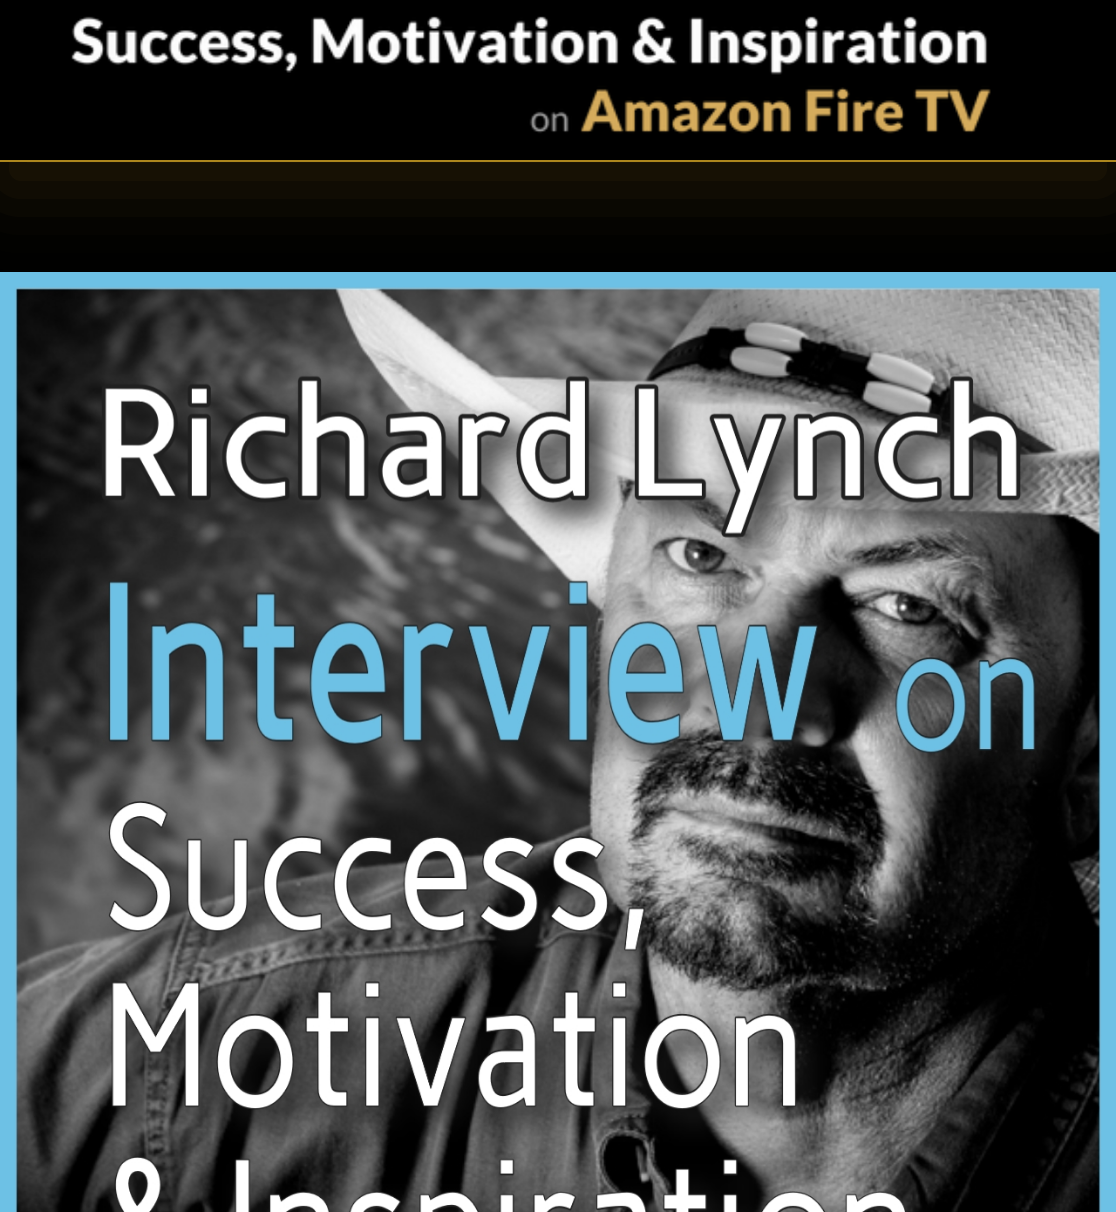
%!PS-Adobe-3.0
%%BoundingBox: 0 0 1116 1212
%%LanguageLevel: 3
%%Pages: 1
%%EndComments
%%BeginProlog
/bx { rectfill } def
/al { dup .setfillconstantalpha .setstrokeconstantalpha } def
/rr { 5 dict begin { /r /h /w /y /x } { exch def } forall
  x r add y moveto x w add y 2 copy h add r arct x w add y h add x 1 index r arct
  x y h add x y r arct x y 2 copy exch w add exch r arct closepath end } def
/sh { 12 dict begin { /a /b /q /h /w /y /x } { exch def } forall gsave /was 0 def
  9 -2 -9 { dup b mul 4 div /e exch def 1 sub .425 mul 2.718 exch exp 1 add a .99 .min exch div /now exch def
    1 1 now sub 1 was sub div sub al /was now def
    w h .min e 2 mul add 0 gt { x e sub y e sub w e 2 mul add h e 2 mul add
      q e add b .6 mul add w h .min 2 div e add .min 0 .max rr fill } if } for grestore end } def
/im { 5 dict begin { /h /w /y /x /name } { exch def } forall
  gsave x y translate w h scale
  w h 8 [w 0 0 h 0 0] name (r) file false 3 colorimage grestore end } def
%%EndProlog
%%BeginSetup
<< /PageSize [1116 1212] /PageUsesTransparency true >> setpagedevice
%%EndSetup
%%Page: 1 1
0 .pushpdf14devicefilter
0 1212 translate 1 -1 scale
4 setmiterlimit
1 setgray
0 0 1116 1212 bx
0 setgray
0 162 1116 110 bx
(image1.raw) 0 272 1116 940 im
1 0.78 0.173 setrgbcolor
0 28 1116 162 0 36 0.12 sh
0 setgray
0 0 1116 160 bx
0.678 0.529 0.118 setrgbcolor
0 160 1116 2 bx
(image0.raw) 71 16 920 118 im
.poppdf14devicefilter showpage
%%EOF
